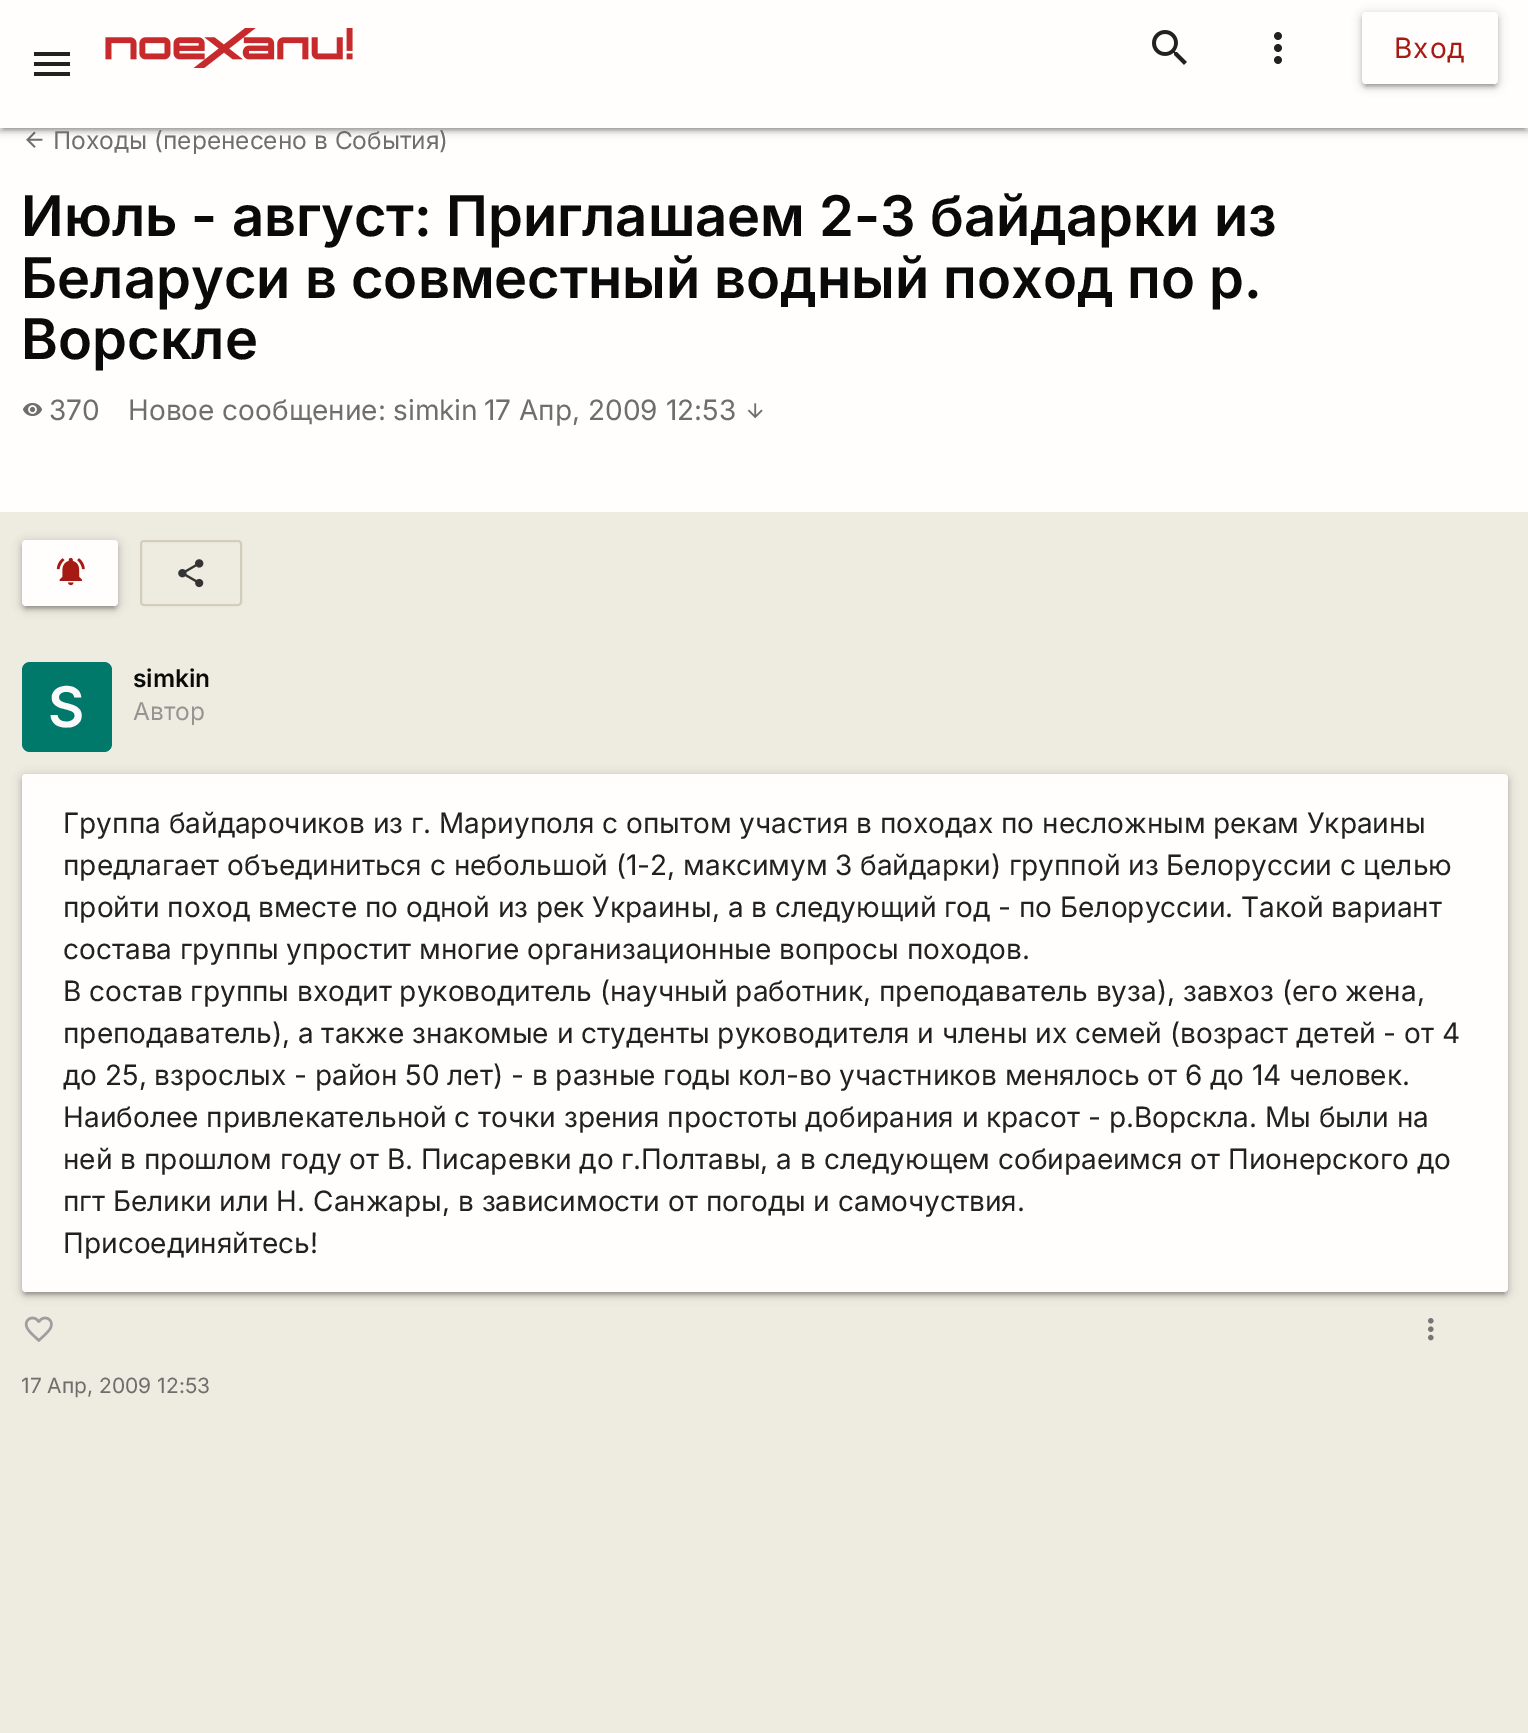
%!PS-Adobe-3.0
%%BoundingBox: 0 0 1528 1733
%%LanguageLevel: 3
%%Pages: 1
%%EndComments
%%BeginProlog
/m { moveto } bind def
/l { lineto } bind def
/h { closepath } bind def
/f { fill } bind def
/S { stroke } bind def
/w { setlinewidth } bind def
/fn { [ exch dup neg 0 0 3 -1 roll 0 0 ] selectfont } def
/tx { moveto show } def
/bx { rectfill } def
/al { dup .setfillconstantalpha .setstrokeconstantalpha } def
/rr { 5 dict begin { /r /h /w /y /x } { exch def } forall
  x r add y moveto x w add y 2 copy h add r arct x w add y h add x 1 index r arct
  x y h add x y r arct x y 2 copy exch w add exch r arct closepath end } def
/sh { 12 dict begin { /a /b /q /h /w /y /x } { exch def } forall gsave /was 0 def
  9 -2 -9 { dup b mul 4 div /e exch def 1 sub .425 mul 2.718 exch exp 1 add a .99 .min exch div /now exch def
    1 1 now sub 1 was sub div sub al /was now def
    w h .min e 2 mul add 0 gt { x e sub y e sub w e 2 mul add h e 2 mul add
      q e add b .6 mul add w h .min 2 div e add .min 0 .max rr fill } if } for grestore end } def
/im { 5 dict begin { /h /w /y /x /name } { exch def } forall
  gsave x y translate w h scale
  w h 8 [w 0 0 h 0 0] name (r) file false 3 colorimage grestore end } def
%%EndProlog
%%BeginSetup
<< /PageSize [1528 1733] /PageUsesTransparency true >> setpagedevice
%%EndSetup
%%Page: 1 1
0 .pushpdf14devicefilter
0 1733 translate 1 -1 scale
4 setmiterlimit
0.933 0.922 0.882 setrgbcolor
0 0 1528 1733 bx
1 0.996 0.988 setrgbcolor
0 128 1528 384 bx
(image3.raw) 26 131 17 17 im
0 setgray
0 2 1528 128 0 5 0.2 sh
4 10 1520 120 0 1 0.12 sh
0 4 1528 128 0 2 0.14 sh
1 0.996 0.988 setrgbcolor
0 0 1528 128 bx
0.129 setgray
34 52 m 70 52 l 70 56 l 34 56 l h 34 66 m 34 62 l 70 62 l 70 66 l h 34 76 m 34 72 l 70 72 l 70 76 l h f
(image0.raw) 105 28 248 40 im
(image1.raw) 1152 30 35 35 im
(image2.raw) 1274 32 8 32 im
0 setgray
1362 14 136 72 4 5 0.2 sh
1366 22 128 64 0 1 0.12 sh
1362 16 136 72 4 2 0.14 sh
1 0.996 0.988 setrgbcolor
1362 12 136 72 4 rr f
/Inter-Regular 28 fn
0.651 0.102 0.078 setrgbcolor
1394 58 m 1 0 (Вход) ashow
/Inter-Regular 24.5 fn
0.439 0.431 0.42 setrgbcolor
(Походы \(перенесено в События\)) 53 149 tx
/Inter-SemiBold 56 fn
0.039 setgray
(Июль - август: Приглашаем 2-3 байдарки из) 21 236 tx
(Беларуси в совместный водный поход по р.) 21 298 tx
(Ворскле) 21 359 tx
(image4.raw) 22 402 21 15 im
/Inter-Regular 28 fn
0.439 0.431 0.42 setrgbcolor
(370) 49 420 tx
(Новое сообщение:) 128 420 tx
(simkin) 393 420 tx
(17 Апр, 2009 12:53) 484 420 tx
(image5.raw) 747 403 16 16 im
0 setgray
22 542 96 66 4 5 0.2 sh
26 550 88 58 0 1 0.12 sh
22 544 96 66 4 2 0.14 sh
1 0.996 0.988 setrgbcolor
22 540 96 66 4 rr f
(image6.raw) 56 557 29 29 im
0.824 0.804 0.737 setrgbcolor
2 w
141 541 100 64 3 rr S
(image7.raw) 178 559 26 29 im
/Inter-SemiBold 24.5 fn
0.039 setgray
(simkin) 133 687 tx
0 0.475 0.42 setrgbcolor
22 662 90 90 8 rr f
/Inter-SemiBold 56 fn
0.98 setgray
(S) 48 727 tx
/Inter-Regular 24.5 fn
0.588 0.58 0.573 setrgbcolor
(Автор) 133 720 tx
0 setgray
22 776 1486 518 4 5 0.2 sh
26 784 1478 510 0 1 0.12 sh
22 778 1486 518 4 2 0.14 sh
1 0.996 0.988 setrgbcolor
22 774 1486 518 4 rr f
/Inter-Regular 28 fn
0.129 setgray
(Группа байдарочиков из г. Мариуполя с опытом участия в походах по несложным рекам Украины) 63 833 tx
(предлагает объединиться с небольшой \(1-2, максимум 3 байдарки\) группой из Белоруссии с целью) 63 875 tx
(пройти поход вместе по одной из рек Украины, а в следующий год - по Белоруссии. Такой вариант) 63 917 tx
(состава группы упростит многие организационные вопросы походов.) 63 959 tx
(В состав группы входит руководитель \(научный работник, преподаватель вуза\), завхоз \(его жена,) 63 1001 tx
(преподаватель\), а также знакомые и студенты руководителя и члены их семей \(возраст детей - от 4) 63 1043 tx
(до 25, взрослых - район 50 лет\) - в разные годы кол-во участников менялось от 6 до 14 человек.) 63 1085 tx
(Наиболее привлекательной с точки зрения простоты добирания и красот - р.Ворскла. Мы были на) 63 1127 tx
(ней в прошлом году от В. Писаревки до г.Полтавы, а в следующем собираеимся от Пионерского до) 63 1169 tx
(пгт Белики или Н. Санжары, в зависимости от погоды и самочуствия.) 63 1211 tx
(Присоединяйтесь!) 63 1253 tx
(image8.raw) 1428 1318 6 23 im
(image9.raw) 24 1316 29 27 im
/Inter-Regular 21 fn
0.439 0.431 0.42 setrgbcolor
(17 Апр, 2009 12:53) 21 1393 tx
.poppdf14devicefilter showpage
%%EOF
